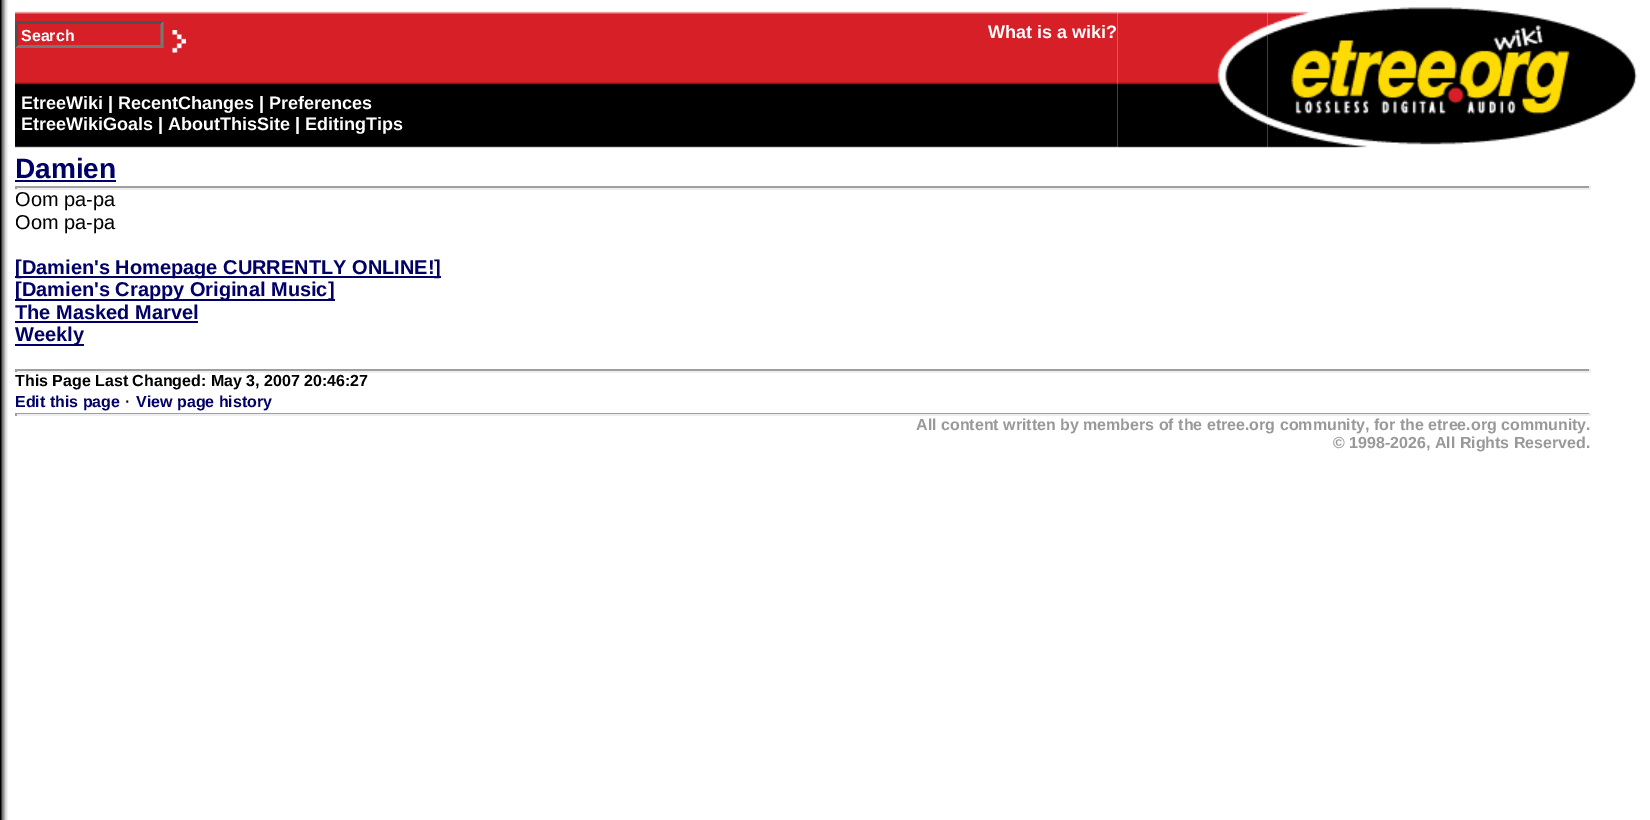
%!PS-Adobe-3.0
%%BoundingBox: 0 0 1650 820
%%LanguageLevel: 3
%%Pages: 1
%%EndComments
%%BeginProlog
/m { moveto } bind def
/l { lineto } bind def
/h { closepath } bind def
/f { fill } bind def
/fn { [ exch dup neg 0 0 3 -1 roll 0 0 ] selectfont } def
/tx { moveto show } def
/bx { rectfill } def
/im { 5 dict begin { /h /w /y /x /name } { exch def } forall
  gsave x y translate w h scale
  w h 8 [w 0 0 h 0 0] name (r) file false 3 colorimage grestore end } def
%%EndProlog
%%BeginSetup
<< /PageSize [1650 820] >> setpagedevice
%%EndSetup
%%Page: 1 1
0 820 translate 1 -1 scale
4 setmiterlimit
1 setgray
0 0 1650 820 bx
(image0.raw) 0 0 8 820 im
(image1.raw) 15 11 1103 137 im
0.31 setgray
15 21 m 164 21 l 160 24 l 18 24 l h f
0.463 setgray
163.5 21 m 163.5 48 l 160.5 45 l 160.5 24 l h f
164 48 m 15 48 l 18 45 l 160 45 l h f
0.31 setgray
15 48 m 15 21 l 18 24 l 18 45 l h f
/LiberationSans-Bold 16 fn
1 setgray
(Search) 21 41 tx
(image2.raw) 172 30 14 23 im
/LiberationSans-Bold 18 fn
(What is a wiki?) 988 38 tx
(EtreeWiki | RecentChanges | Preferences) 21 109 tx
(EtreeWikiGoals | AboutThisSite | EditingTips) 21 130 tx
(image3.raw) 1117 11 151 137 im
(image4.raw) 1267 7 370 141 im
/LiberationSans-Bold 28 fn
0 0 0.4 setrgbcolor
(Damien) 15 178 tx
15 180 101 2 bx
0.624 setgray
15 186 1575 2 bx
0.933 setgray
1589 186 2 3 bx
15 188 1575 2 bx
0.624 setgray
15 186 2 3 bx
/LiberationSans-Regular 20 fn
0 setgray
(Oom pa-pa) 15 206 tx
(Oom pa-pa) 15 229 tx
0 0 0.4 setrgbcolor
15 276 426 2 bx
/LiberationSans-Bold 20 fn
([Damien's Homepage CURRENTLY ONLINE!]) 15 274 tx
15 299 320 2 bx
([Damien's Crappy Original Music]) 15 296 tx
(The Masked Marvel) 15 319 tx
15 321 183 2 bx
15 344 69 2 bx
(Weekly) 15 341 tx
0.624 setgray
15 369 1575 2 bx
0.933 setgray
1589 369 2 3 bx
15 371 1575 2 bx
0.624 setgray
15 369 2 3 bx
/LiberationSans-Bold 16 fn
0 setgray
(This Page Last Changed: May 3, 2007 20:46:27) 15 386 tx
0 0 0.4 setrgbcolor
(Edit this page) 15 407 tx
/LiberationSans-Regular 20 fn
0 setgray
(·) 124 407 tx
/LiberationSans-Bold 16 fn
0 0 0.4 setrgbcolor
(View page history) 136 407 tx
0.624 setgray
15 413 1575 1 bx
0.933 setgray
1589 413 2 3 bx
15 414 1575 2 bx
0.624 setgray
15 413 2 3 bx
0.6 setgray
(All content written by members of the etree.org community, for the etree.org community.) 916 430 tx
(© 1998-2026, All Rights Reserved.) 1333 448 tx
showpage
%%EOF
